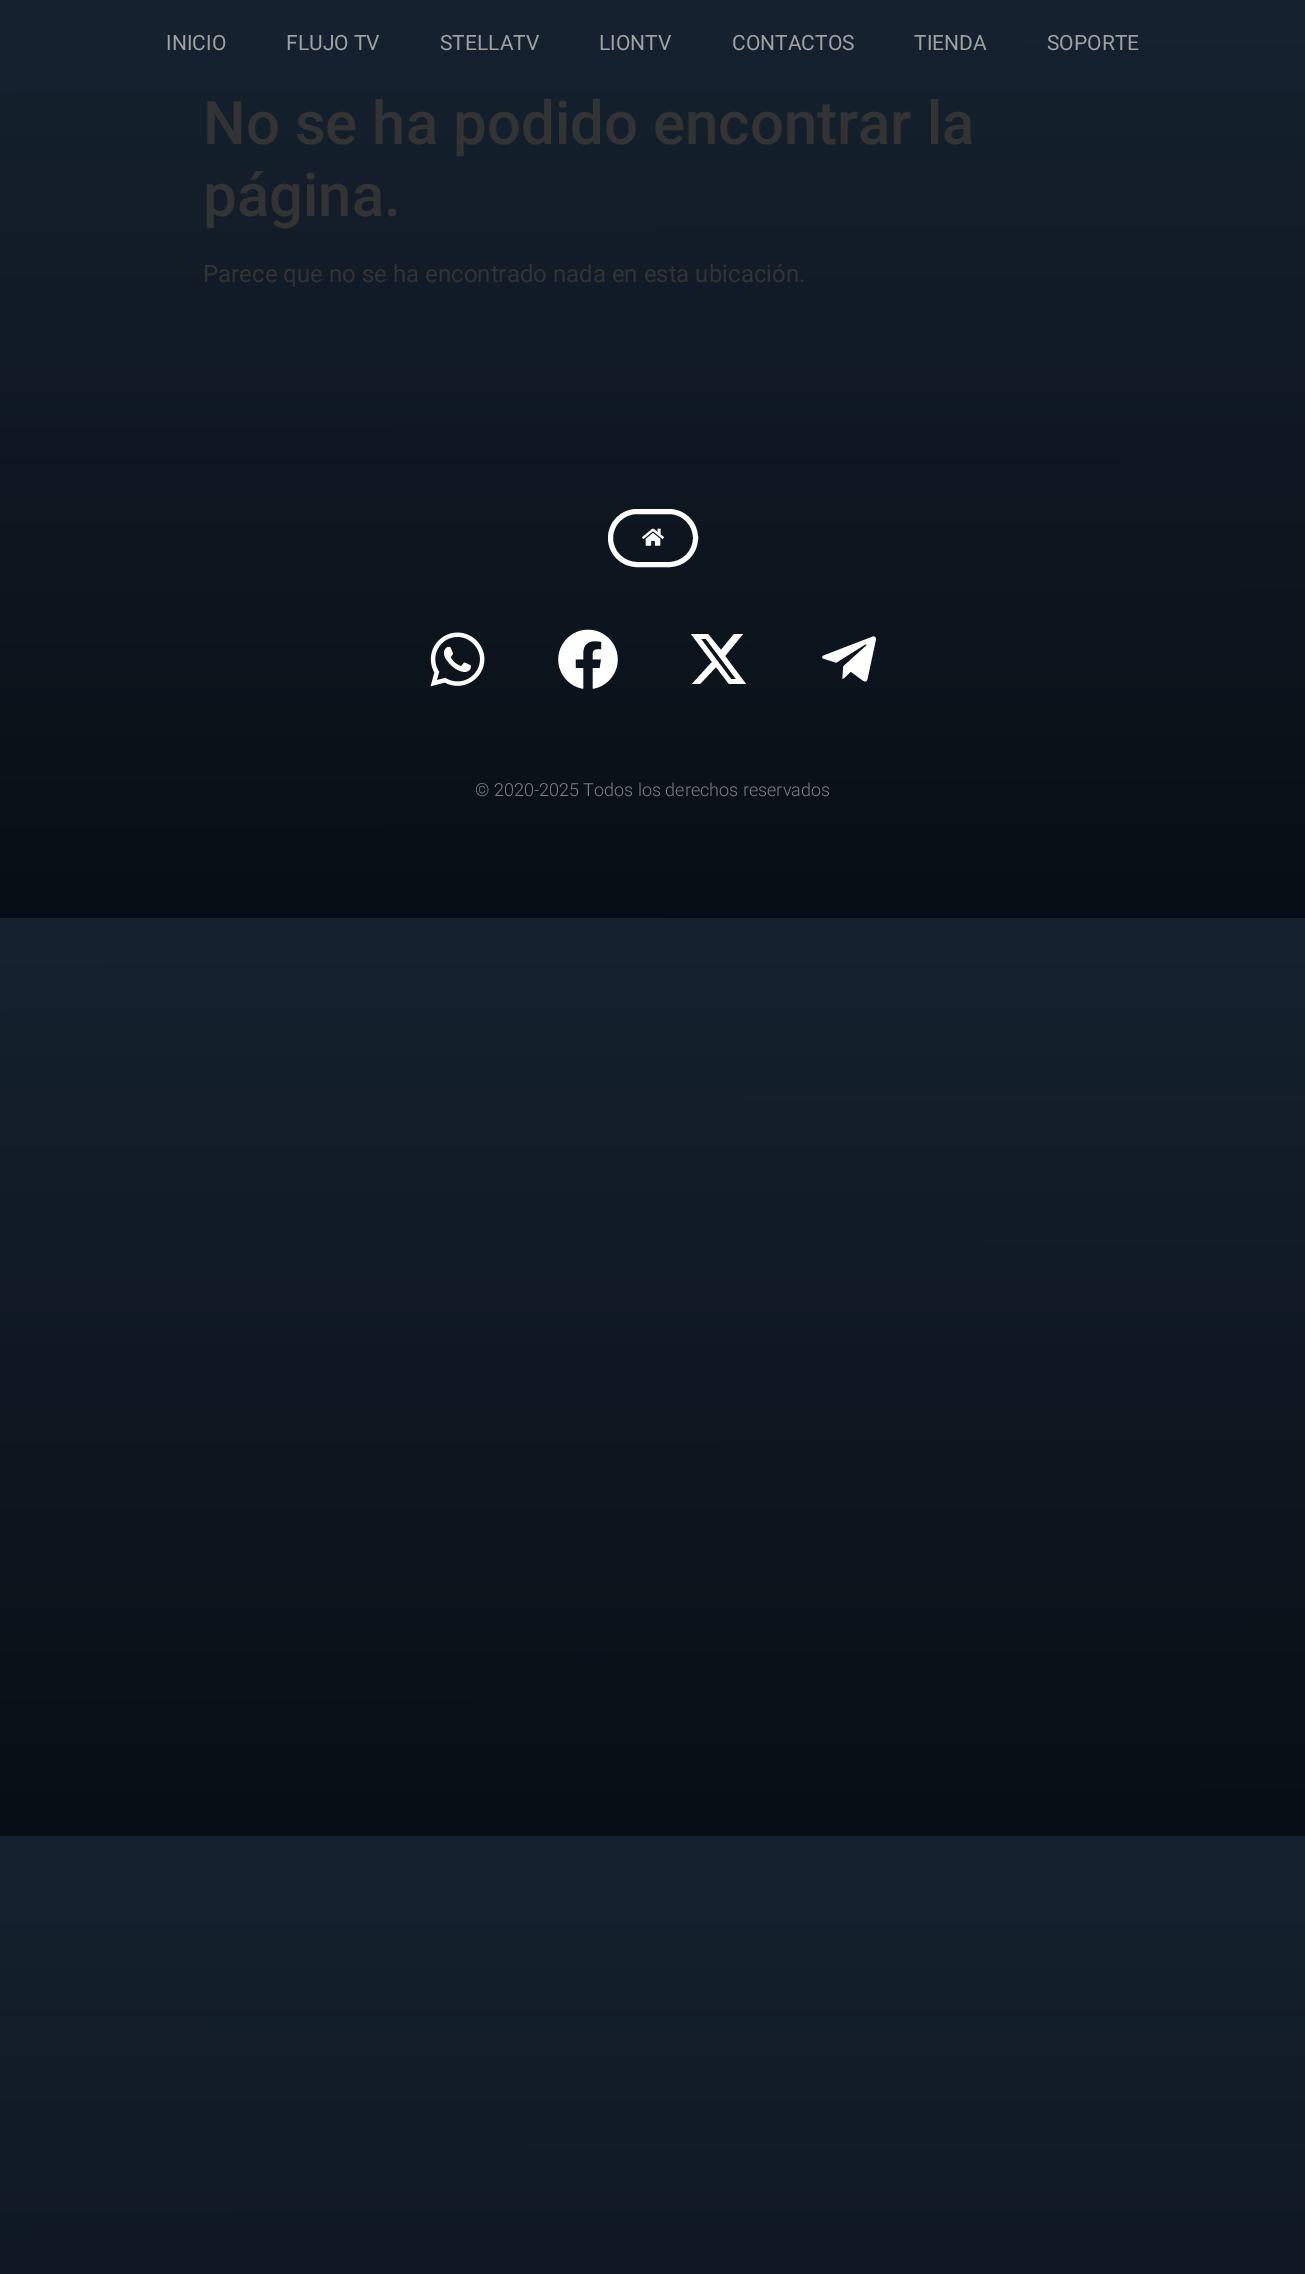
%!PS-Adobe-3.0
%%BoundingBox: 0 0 1305 2274
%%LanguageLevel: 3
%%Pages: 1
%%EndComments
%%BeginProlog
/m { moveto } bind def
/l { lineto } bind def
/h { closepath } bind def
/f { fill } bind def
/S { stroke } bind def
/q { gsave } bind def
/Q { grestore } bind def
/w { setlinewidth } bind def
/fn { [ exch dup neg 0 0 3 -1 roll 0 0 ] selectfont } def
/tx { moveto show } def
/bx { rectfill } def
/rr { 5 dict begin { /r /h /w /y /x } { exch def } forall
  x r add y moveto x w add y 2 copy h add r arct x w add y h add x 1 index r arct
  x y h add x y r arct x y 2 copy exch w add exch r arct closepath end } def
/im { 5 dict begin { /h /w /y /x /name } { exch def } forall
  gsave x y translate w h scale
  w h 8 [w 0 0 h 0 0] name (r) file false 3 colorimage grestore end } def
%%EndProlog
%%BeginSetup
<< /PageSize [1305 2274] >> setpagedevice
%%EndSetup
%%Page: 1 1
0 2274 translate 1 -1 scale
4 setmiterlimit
1 setgray
0 0 1305 2274 bx
q 0 0 m 1305 0 l 1305 918 l 0 918 l h clip newpath
<< /ShadingType 2 /ColorSpace /DeviceRGB /Coords [652 0 653 918] /Extend [true true] /Function << /FunctionType 2 /Domain [0 1] /C0 [0.086 0.133 0.188] /C1 [0.031 0.055 0.082] /N 1 >> >> shfill Q
q 0 918 m 1305 918 l 1305 1836 l 0 1836 l h clip newpath
<< /ShadingType 2 /ColorSpace /DeviceRGB /Coords [652 918 653 1836] /Extend [true true] /Function << /FunctionType 2 /Domain [0 1] /C0 [0.086 0.133 0.188] /C1 [0.031 0.055 0.082] /N 1 >> >> shfill Q
q 0 1836 m 1305 1836 l 1305 2274 l 0 2274 l h clip newpath
<< /ShadingType 2 /ColorSpace /DeviceRGB /Coords [652 1836 653 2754] /Extend [true true] /Function << /FunctionType 2 /Domain [0 1] /C0 [0.086 0.133 0.188] /C1 [0.031 0.055 0.082] /N 1 >> >> shfill Q
/Roboto-Regular 21 fn
0.627 setgray
(INICIO) 166 50 tx
(FLUJO TV) 286 50 tx
(STELLATV) 440 50 tx
(LIONTV) 599 50 tx
(CONTACTOS) 732 50 tx
(TIENDA) 914 50 tx
(SOPORTE) 1047 50 tx
/Roboto-Medium 60 fn
0.2 setgray
(No se ha podido encontrar la) 203 144 tx
(página.) 203 216 tx
/Roboto-Regular 24 fn
(Parece que no se ha encontrado nada en esta ubicación.) 203 282 tx
1 setgray
5 w
610.5 511.5 85 53 26.5 rr S
(image0.raw) 642 528 22 18 im
(image1.raw) 430 632 55 55 im
(image2.raw) 558 629 60 60 im
734 634 m 743 634 l 725 656 l 746 684 l 729 684 l 716 667 l 700 684 l 692 684 l 712 662 l 691 634 l 708 634 l 721 650 l h 731 679 m 736 679 l 706 639 l 701 639 l h f
(image3.raw) 822 636 54 46 im
/Roboto-Light 18 fn
0.494 setgray
(© 2020-2025 Todos los derechos reservados) 475 796 tx
showpage
%%EOF
